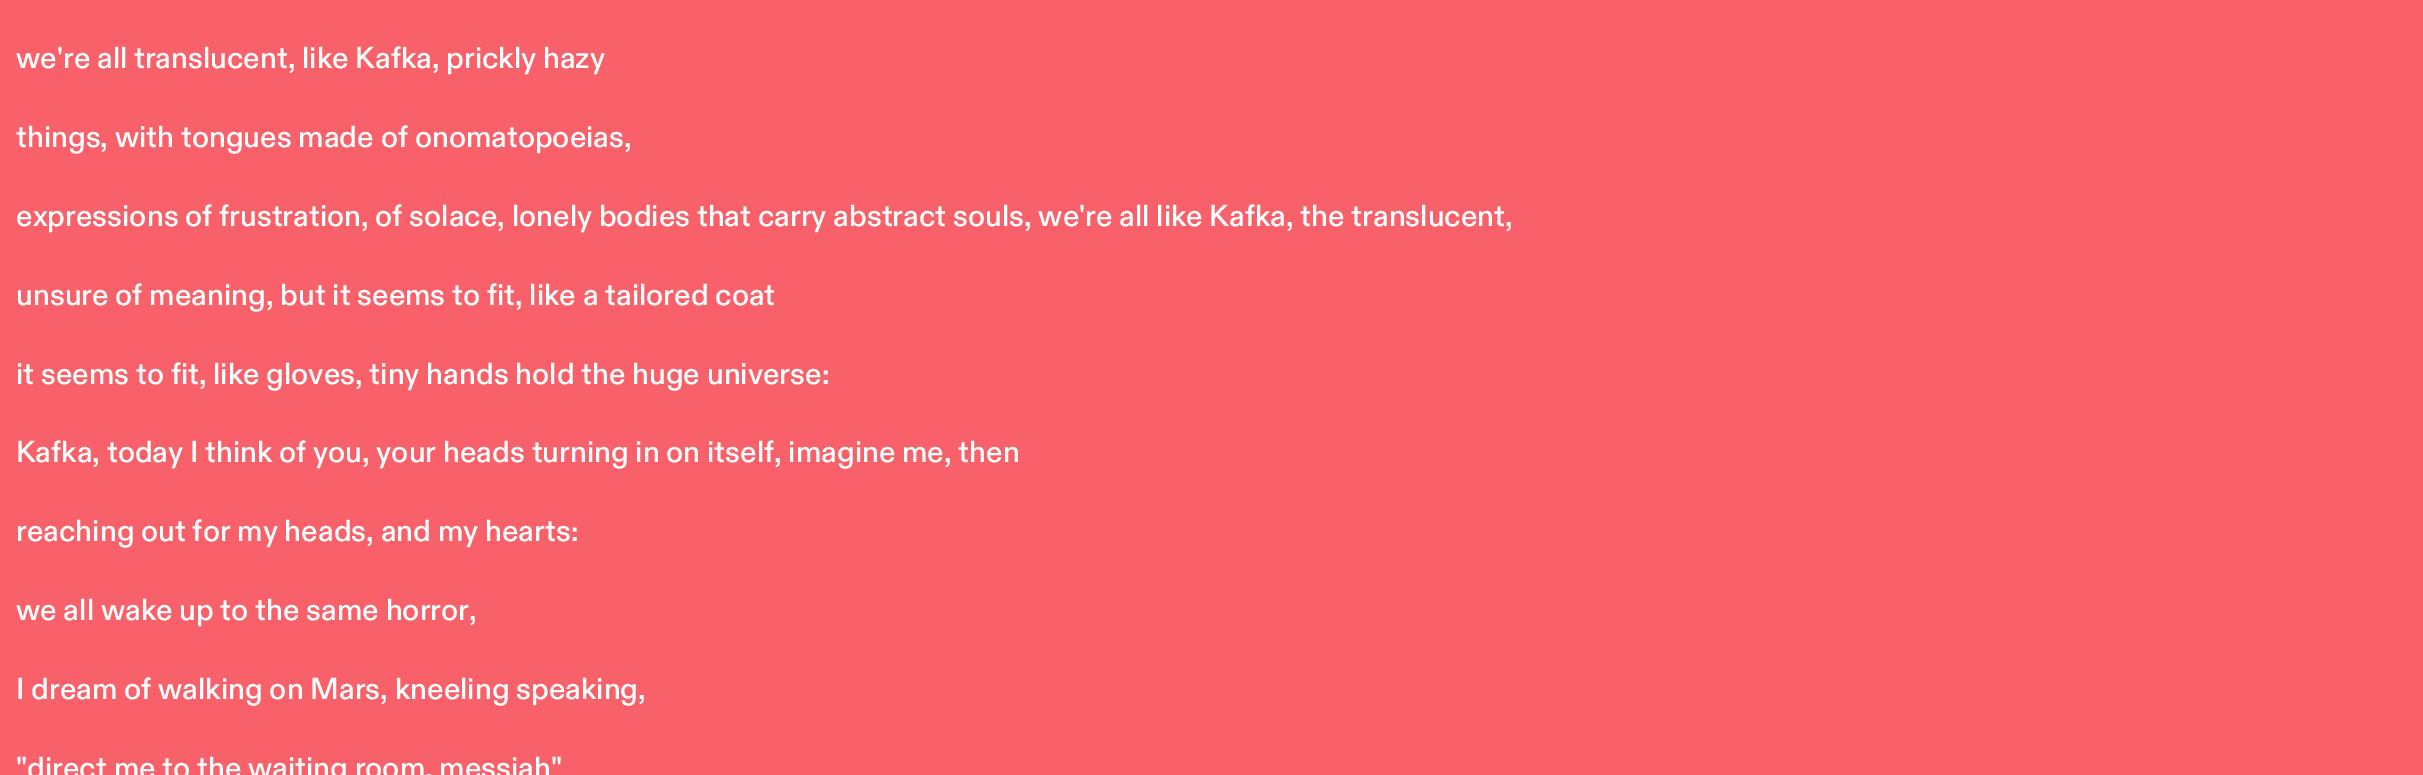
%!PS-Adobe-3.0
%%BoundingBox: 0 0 2423 775
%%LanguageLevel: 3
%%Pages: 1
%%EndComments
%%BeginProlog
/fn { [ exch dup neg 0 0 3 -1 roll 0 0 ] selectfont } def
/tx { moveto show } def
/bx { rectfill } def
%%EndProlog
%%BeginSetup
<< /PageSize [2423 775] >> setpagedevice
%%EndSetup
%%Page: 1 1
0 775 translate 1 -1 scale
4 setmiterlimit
0.976 0.38 0.416 setrgbcolor
0 0 2423 775 bx
/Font-Medium 30.35 fn
1 setgray
(we're all translucent, like Kafka, prickly hazy) 16 68 tx
(things, with tongues made of onomatopoeias,) 16 147 tx
(expressions of frustration, of solace, lonely bodies that carry abstract souls, we're all like Kafka, the translucent,) 16 226 tx
(unsure of meaning, but it seems to fit, like a tailored coat) 16 305 tx
(it seems to fit, like gloves, tiny hands hold the huge universe:) 16 384 tx
(Kafka, today I think of you, your heads turning in on itself, imagine me, then) 16 462 tx
(reaching out for my heads, and my hearts:) 16 541 tx
(we all wake up to the same horror,) 16 620 tx
(I dream of walking on Mars, kneeling speaking,) 16 699 tx
("direct me to the waiting room, messiah") 16 778 tx
showpage
%%EOF
